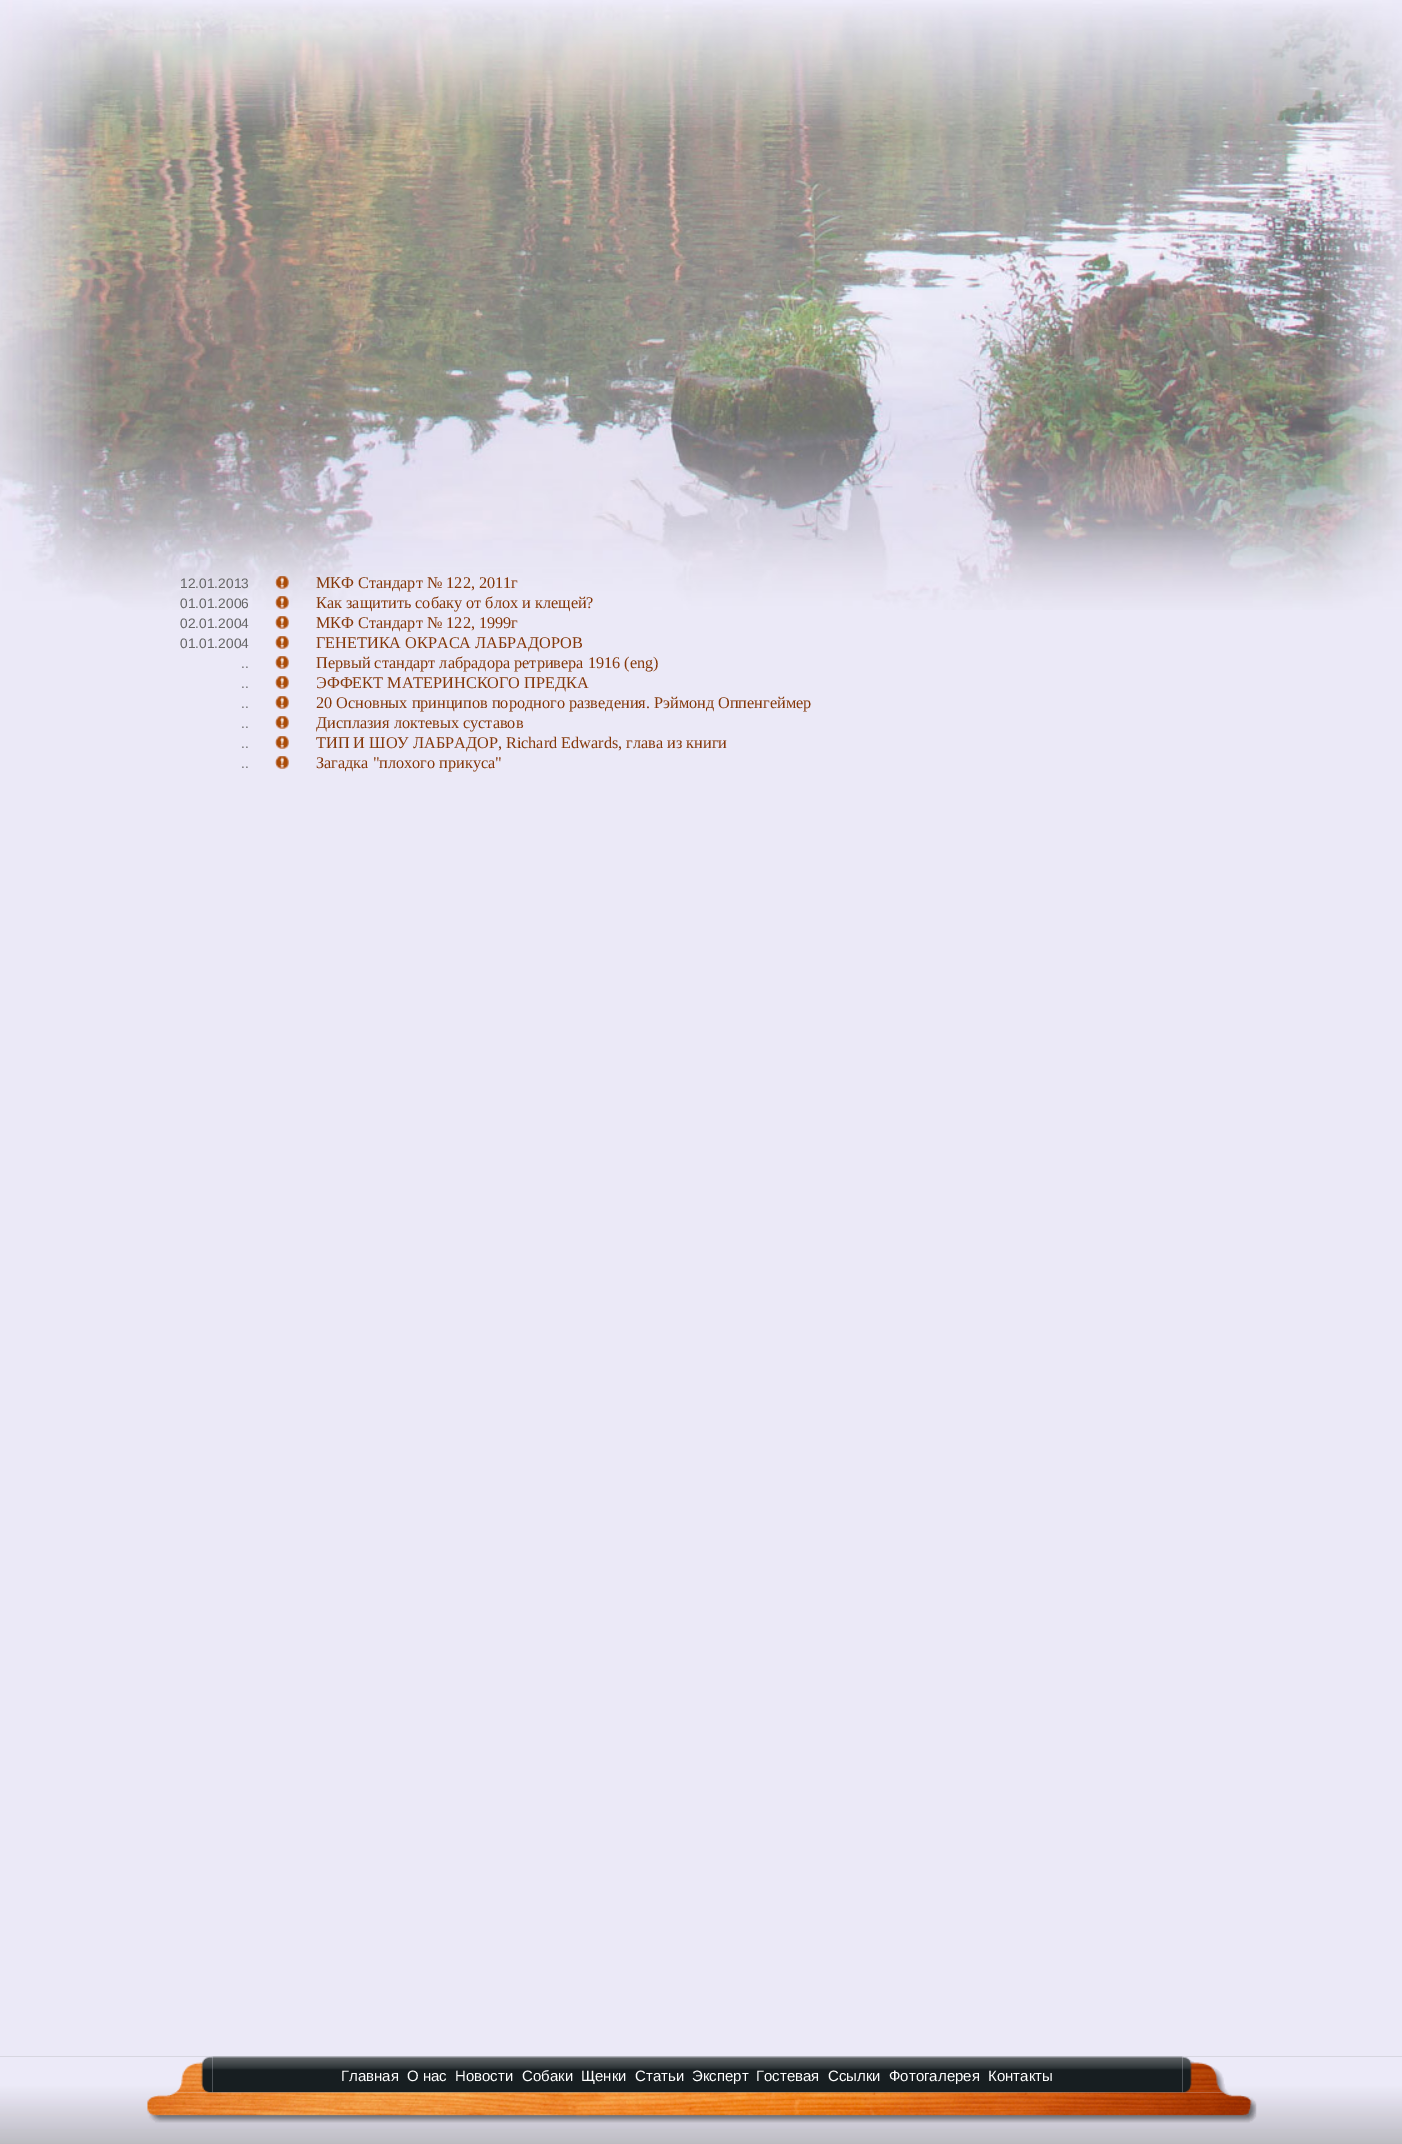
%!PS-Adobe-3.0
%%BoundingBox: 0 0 1402 2144
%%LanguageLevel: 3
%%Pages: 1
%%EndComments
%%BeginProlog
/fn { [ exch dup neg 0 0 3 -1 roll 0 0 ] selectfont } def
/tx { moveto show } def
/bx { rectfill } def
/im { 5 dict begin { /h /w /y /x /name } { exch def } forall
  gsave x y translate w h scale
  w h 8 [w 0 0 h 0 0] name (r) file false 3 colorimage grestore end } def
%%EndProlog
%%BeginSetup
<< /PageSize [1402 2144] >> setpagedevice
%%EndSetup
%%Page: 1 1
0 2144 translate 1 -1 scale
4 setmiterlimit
0.922 0.914 0.969 setrgbcolor
0 0 1402 2144 bx
(image0.raw) 0 0 1402 610 im
/LiberationSans-Regular 13.75 fn
0.4 setgray
(12.01.2013) 180 588 tx
(image1.raw) 275 576 14 13 im
/LiberationSerif-Regular 16.25 fn
0.522 0.22 0.039 setrgbcolor
(МКФ Стандарт № 122, 2011г) 316 588 tx
/LiberationSans-Regular 13.75 fn
0.4 setgray
(01.01.2006) 180 608 tx
(image2.raw) 275 596 14 13 im
/LiberationSerif-Regular 16.25 fn
0.522 0.22 0.039 setrgbcolor
(Как защитить собаку от блох и клещей?) 316 608 tx
/LiberationSans-Regular 13.75 fn
0.4 setgray
(02.01.2004) 180 628 tx
(image3.raw) 275 616 14 13 im
/LiberationSerif-Regular 16.25 fn
0.522 0.22 0.039 setrgbcolor
(МКФ Стандарт № 122, 1999г) 316 628 tx
/LiberationSans-Regular 13.75 fn
0.4 setgray
(01.01.2004) 180 648 tx
(image3.raw) 275 636 14 13 im
/LiberationSerif-Regular 16.25 fn
0.522 0.22 0.039 setrgbcolor
(ГЕНЕТИКА ОКРАСА ЛАБРАДОРОВ) 316 648 tx
/LiberationSans-Regular 13.75 fn
0.4 setgray
(..) 241 668 tx
(image3.raw) 275 656 14 13 im
/LiberationSerif-Regular 16.25 fn
0.522 0.22 0.039 setrgbcolor
(Первый стандарт лабрадора ретривера 1916 \(eng\)) 316 668 tx
/LiberationSans-Regular 13.75 fn
0.4 setgray
(..) 241 688 tx
(image3.raw) 275 676 14 13 im
/LiberationSerif-Regular 16.25 fn
0.522 0.22 0.039 setrgbcolor
(ЭФФЕКТ МАТЕРИНСКОГО ПРЕДКА) 316 688 tx
/LiberationSans-Regular 13.75 fn
0.4 setgray
(..) 241 708 tx
(image3.raw) 275 696 14 13 im
/LiberationSerif-Regular 16.25 fn
0.522 0.22 0.039 setrgbcolor
(20 Основных принципов породного разведения. Рэймонд Оппенгеймер) 316 708 tx
/LiberationSans-Regular 13.75 fn
0.4 setgray
(..) 241 728 tx
(image3.raw) 275 716 14 13 im
/LiberationSerif-Regular 16.25 fn
0.522 0.22 0.039 setrgbcolor
(Дисплазия локтевых суставов) 316 728 tx
/LiberationSans-Regular 13.75 fn
0.4 setgray
(..) 241 748 tx
(image3.raw) 275 736 14 13 im
/LiberationSerif-Regular 16.25 fn
0.522 0.22 0.039 setrgbcolor
(ТИП И ШОУ ЛАБРАДОР, Richard Edwards, глава из книги) 316 748 tx
/LiberationSans-Regular 13.75 fn
0.4 setgray
(..) 241 768 tx
(image3.raw) 275 756 14 13 im
/LiberationSerif-Regular 16.25 fn
0.522 0.22 0.039 setrgbcolor
(Загадка "плохого прикуса") 316 768 tx
(image4.raw) 0 2056 1402 88 im
(image6.raw) 212 2056 971 37 im
(image5.raw) 176 2056 37 37 im
/LiberationSans-Regular 15 fn
1 setgray
(Главная) 341 2081 tx
(О нас) 407 2081 tx
(Новости) 455 2081 tx
(Собаки) 522 2081 tx
(Щенки) 581 2081 tx
(Статьи) 635 2081 tx
(Эксперт) 692 2081 tx
(Гостевая) 756 2081 tx
(Ссылки) 828 2081 tx
(Фотогалерея) 889 2081 tx
(Контакты) 988 2081 tx
(image7.raw) 1182 2056 46 37 im
(image8.raw) 147 2092 1110 31 im
showpage
%%EOF
